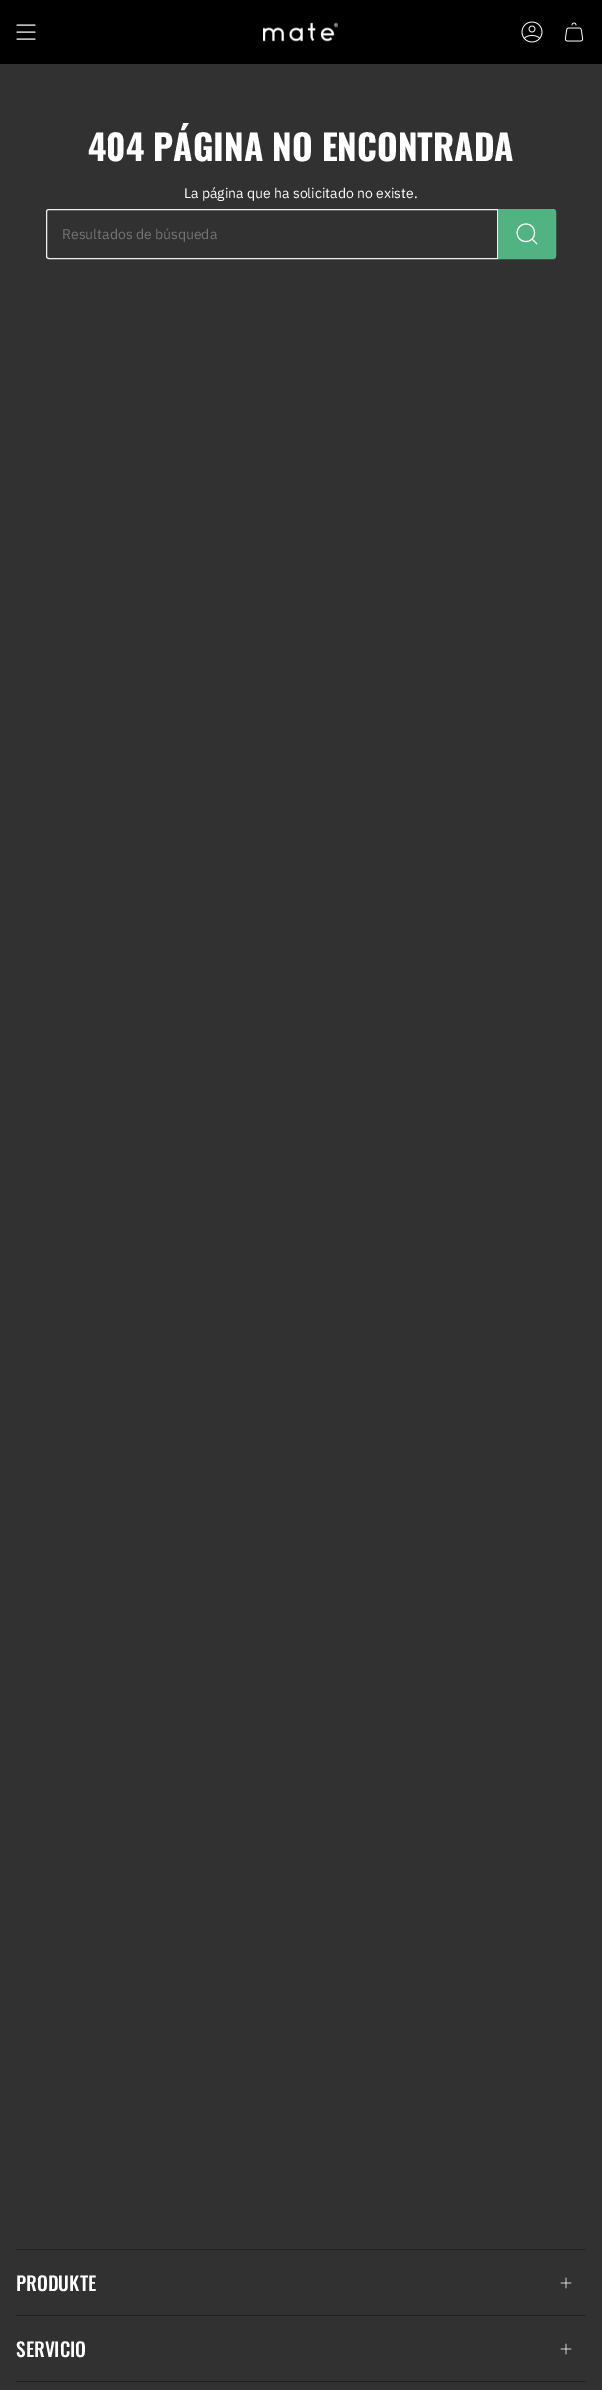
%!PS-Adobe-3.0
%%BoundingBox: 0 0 602 2390
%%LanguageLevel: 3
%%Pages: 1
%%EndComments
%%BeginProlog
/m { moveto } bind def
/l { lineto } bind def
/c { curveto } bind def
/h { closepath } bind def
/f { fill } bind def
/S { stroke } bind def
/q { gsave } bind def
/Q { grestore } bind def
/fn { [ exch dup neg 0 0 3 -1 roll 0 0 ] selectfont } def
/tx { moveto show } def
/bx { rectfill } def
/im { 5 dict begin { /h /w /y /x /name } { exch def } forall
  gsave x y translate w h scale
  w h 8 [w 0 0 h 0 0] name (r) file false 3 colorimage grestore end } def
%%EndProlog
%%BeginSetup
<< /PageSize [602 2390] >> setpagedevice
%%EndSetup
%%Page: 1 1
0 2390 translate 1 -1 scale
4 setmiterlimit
0.192 setgray
0 0 602 2390 bx
0 setgray
0 0 602 64 bx
1 setgray
1 setlinecap
1 setlinejoin
17 25 m 35 25 l 17 32 m 35 32 l 17 39 m 35 39 l S
(image0.raw) 263 22 75 20 im
(image1.raw) 521 21 22 22 im
(image2.raw) 564 22 20 20 im
/Oswald-Bold 35.25 fn
(404 PÁGINA NO ENCONTRADA) 88 161 tx
/IBMPlexSans-Regular 14 fn
(La página que ha solicitado no existe.) 184 198 tx
0.941 setgray
0 setlinecap
0 setlinejoin
49 209.5 m 497.5 209.5 l 497.5 258.5 l 49 258.5 l 47.5 258.5 46.5 257.5 46.5 256 c 46.5 212 l 46.5 210.5 47.5 209.5 49 209.5 c h S
0.459 setgray
(Resultados de búsqueda) 62 239 tx
0.318 0.702 0.506 setrgbcolor
498.5 209.5 m 553 209.5 l 554.5 209.5 555.5 210.5 555.5 212 c 555.5 256 l 555.5 257.5 554.5 258.5 553 258.5 c 498.5 258.5 l h q f Q
S
1 setgray
526 224 m 537.5 224 537.5 242 525.5 241.5 c 514 241 514.5 224 526 224 c h 532 239 m 537 244 l S
0.129 setgray
16 2249 570 1 bx
/Oswald-Medium 19.25 fn
1 setgray
(PRODUKTE) 16 2291 tx
(image3.raw) 560 2277 12 12 im
0.129 setgray
16 2315 570 1 bx
1 setgray
(SERVICIO) 16 2357 tx
(image3.raw) 560 2343 12 12 im
0.129 setgray
16 2381 570 1 bx
showpage
%%EOF
